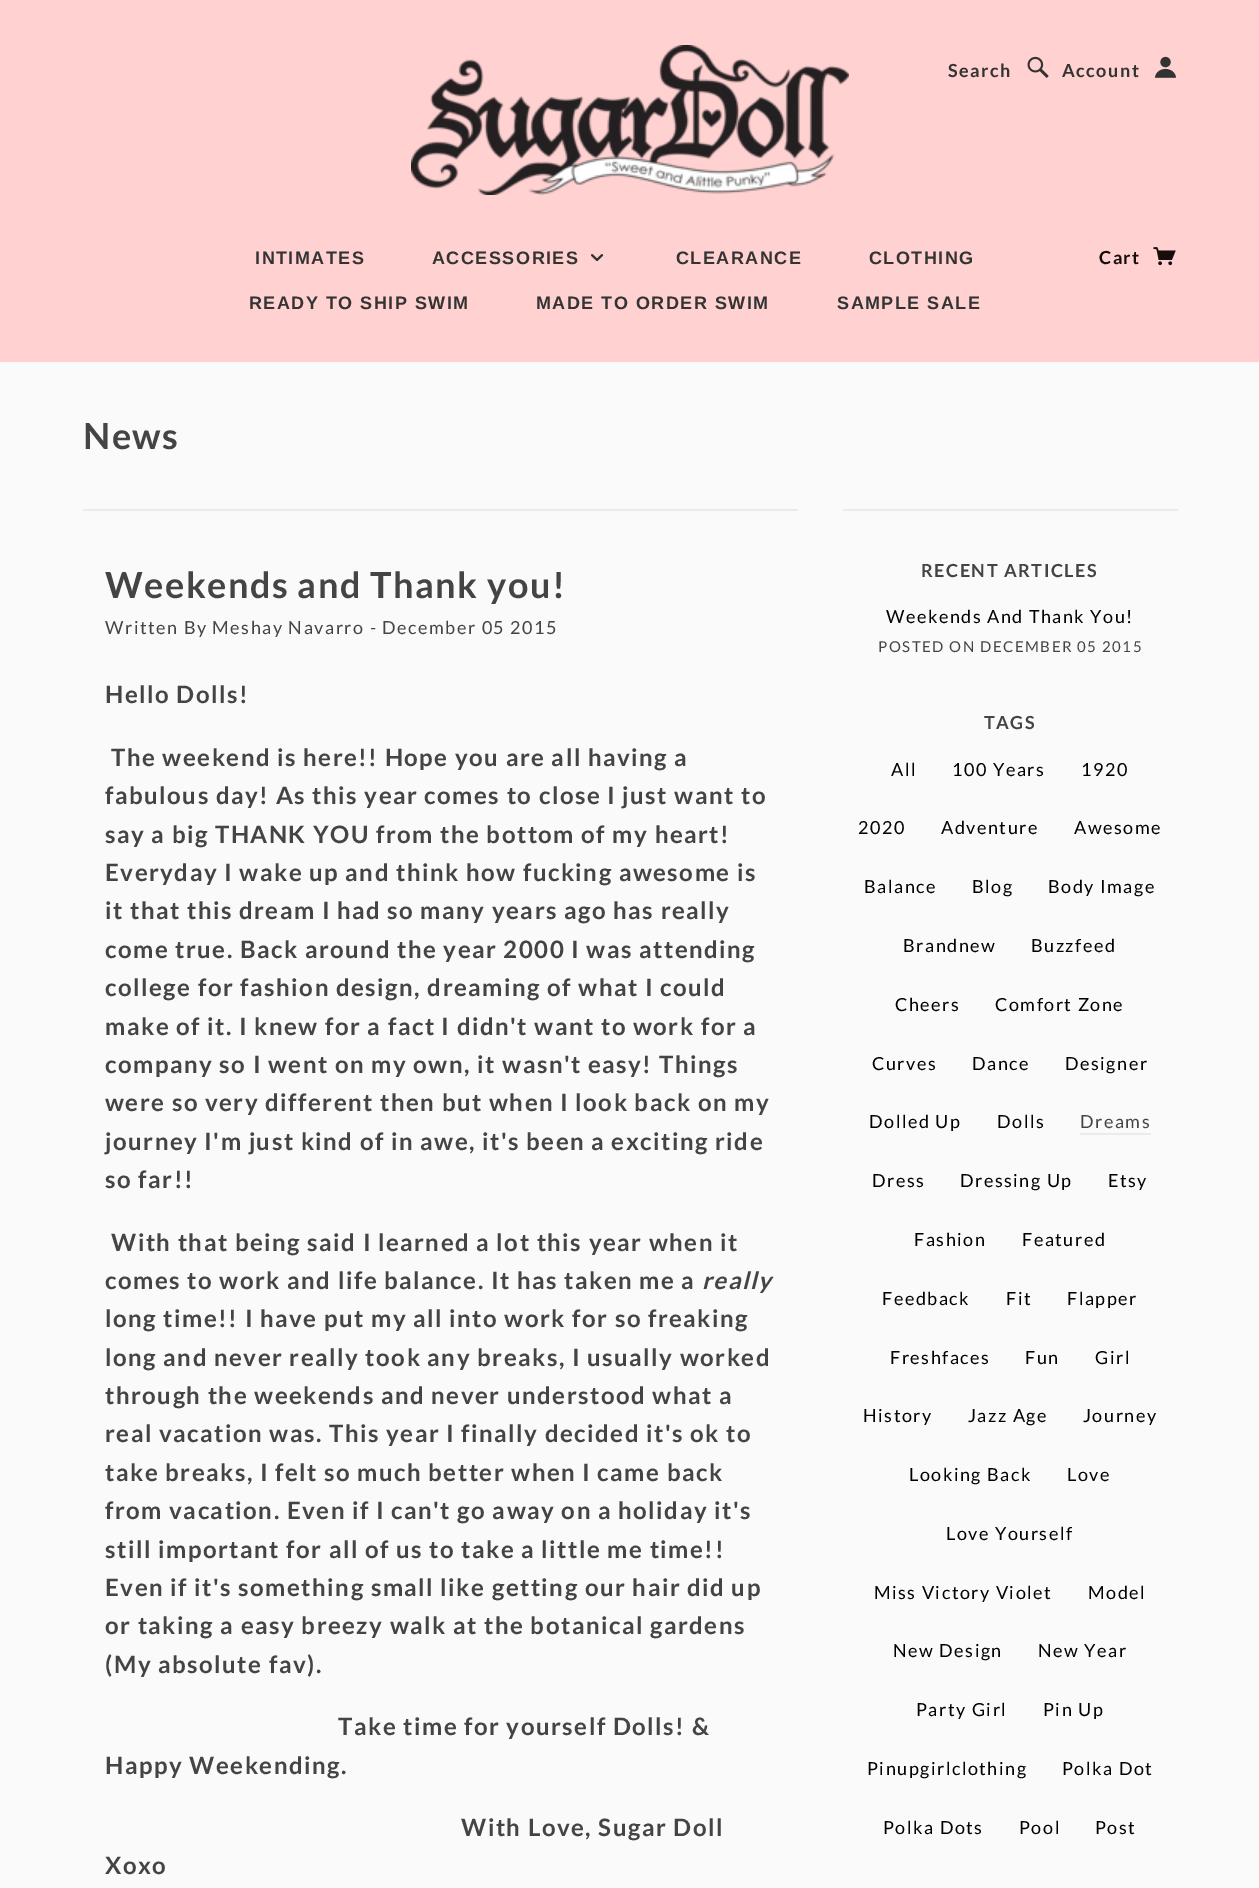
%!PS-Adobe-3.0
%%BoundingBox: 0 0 1259 1888
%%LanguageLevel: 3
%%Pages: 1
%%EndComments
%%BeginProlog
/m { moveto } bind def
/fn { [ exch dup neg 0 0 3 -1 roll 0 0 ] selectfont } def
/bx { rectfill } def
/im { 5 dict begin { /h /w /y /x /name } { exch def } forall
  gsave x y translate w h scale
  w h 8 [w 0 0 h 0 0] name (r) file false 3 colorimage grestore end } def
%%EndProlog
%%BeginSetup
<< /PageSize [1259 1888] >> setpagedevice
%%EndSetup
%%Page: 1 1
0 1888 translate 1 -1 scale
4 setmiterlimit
0.98 setgray
0 0 1259 1888 bx
1 0.82 0.82 setrgbcolor
0 0 1259 362 bx
(image0.raw) 411 45 438 150 im
/Lato-Bold 18 fn
0.2 setgray
948 77 m 1.5 0 (Search) ashow
(image1.raw) 1027 56 22 22 im
1062 77 m 1.5 0 (Account) ashow
(image2.raw) 1155 56 21 22 im
/LiberationSans-Bold 18 fn
255 264 m 1.5 0 (INTIMATES) ashow
432 264 m 1.5 0 (ACCESSORIES) ashow
(image3.raw) 591 254 13 8 im
676 264 m 1.5 0 (CLEARANCE) ashow
869 264 m 1.5 0 (CLOTHING) ashow
249 309 m 1.5 0 (READY TO SHIP SWIM) ashow
536 309 m 1.5 0 (MADE TO ORDER SWIM) ashow
837 309 m 1.5 0 (SAMPLE SALE) ashow
/Lato-Bold 18 fn
0.09 0.051 0.051 setrgbcolor
1099 264 m 1.5 0 (Cart) ashow
(image4.raw) 1153 247 23 19 im
/Lato-Bold 36 fn
0.267 setgray
83 449 m 1.5 0 (News) ashow
0.922 setgray
83 509 715 2 bx
0.267 setgray
105 598 m 1.5 0 (Weekends and Thank you!) ashow
/Lato-Regular 18 fn
105 634 m 1.5 0 (Written By Meshay Navarro - December 05 2015) ashow
/Lato-Bold 24 fn
105 703 m 1.5 0 (Hello Dolls!) ashow
111 766 m 1.5 0 (The weekend is here!! Hope you are all having a) ashow
105 804 m 1.5 0 (fabulous day! As this year comes to close I just want to) ashow
105 843 m 1.5 0 (say a big THANK YOU from the bottom of my heart!) ashow
105 881 m 1.5 0 (Everyday I wake up and think how fucking awesome is) ashow
105 919 m 1.5 0 (it that this dream I had so many years ago has really) ashow
105 958 m 1.5 0 (come true. Back around the year 2000 I was attending) ashow
105 996 m 1.5 0 (college for fashion design, dreaming of what I could) ashow
105 1035 m 1.5 0 (make of it. I knew for a fact I didn't want to work for a) ashow
105 1073 m 1.5 0 (company so I went on my own, it wasn't easy! Things) ashow
105 1111 m 1.5 0 (were so very different then but when I look back on my) ashow
105 1150 m 1.5 0 (journey I'm just kind of in awe, it's been a exciting ride) ashow
105 1188 m 1.5 0 (so far!!) ashow
111 1251 m 1.5 0 (With that being said I learned a lot this year when it) ashow
105 1289 m 1.5 0 (comes to work and life balance. It has taken me a) ashow
/Lato-BoldItalic 24 fn
702 1289 m 1.5 0 (really) ashow
/Lato-Bold 24 fn
105 1327 m 1.5 0 (long time!! I have put my all into work for so freaking) ashow
105 1366 m 1.5 0 (long and never really took any breaks, I usually worked) ashow
105 1404 m 1.5 0 (through the weekends and never understood what a) ashow
105 1442 m 1.5 0 (real vacation was. This year I finally decided it's ok to) ashow
105 1481 m 1.5 0 (take breaks, I felt so much better when I came back) ashow
105 1519 m 1.5 0 (from vacation. Even if I can't go away on a holiday it's) ashow
105 1558 m 1.5 0 (still important for all of us to take a little me time!!) ashow
105 1596 m 1.5 0 (Even if it's something small like getting our hair did up) ashow
105 1634 m 1.5 0 (or taking a easy breezy walk at the botanical gardens) ashow
105 1673 m 1.5 0 (\(My absolute fav\).) ashow
338 1735 m 1.5 0 (Take time for yourself Dolls! &) ashow
105 1774 m 1.5 0 (Happy Weekending.) ashow
461 1836 m 1.5 0 (With Love, Sugar Doll) ashow
105 1874 m 1.5 0 (Xoxo) ashow
0.922 setgray
843 509 335 2 bx
/Lato-Bold 18 fn
0.267 setgray
921 577 m 1.5 0 (RECENT ARTICLES) ashow
/Lato-Regular 18 fn
0 setgray
886 623 m 1.5 0 (Weekends And Thank You!) ashow
/Lato-Regular 15 fn
0.267 setgray
878 652 m 1.5 0 (POSTED ON DECEMBER 05 2015) ashow
/Lato-Bold 18 fn
984 729 m 1.5 0 (TAGS) ashow
/Lato-Regular 18 fn
0 setgray
891 776 m 1.5 0 (All) ashow
952 776 m 1.5 0 (100 Years) ashow
1081 776 m 1.5 0 (1920) ashow
858 834 m 1.5 0 (2020) ashow
941 834 m 1.5 0 (Adventure) ashow
1074 834 m 1.5 0 (Awesome) ashow
864 893 m 1.5 0 (Balance) ashow
972 893 m 1.5 0 (Blog) ashow
1048 893 m 1.5 0 (Body Image) ashow
903 952 m 1.5 0 (Brandnew) ashow
1031 952 m 1.5 0 (Buzzfeed) ashow
895 1011 m 1.5 0 (Cheers) ashow
995 1011 m 1.5 0 (Comfort Zone) ashow
872 1070 m 1.5 0 (Curves) ashow
972 1070 m 1.5 0 (Dance) ashow
1065 1070 m 1.5 0 (Designer) ashow
869 1128 m 1.5 0 (Dolled Up) ashow
997 1128 m 1.5 0 (Dolls) ashow
0.267 setgray
1080 1128 m 1.5 0 (Dreams) ashow
0.922 setgray
1080 1133 71 2 bx
0 setgray
872 1187 m 1.5 0 (Dress) ashow
960 1187 m 1.5 0 (Dressing Up) ashow
1108 1187 m 1.5 0 (Etsy) ashow
914 1246 m 1.5 0 (Fashion) ashow
1022 1246 m 1.5 0 (Featured) ashow
882 1305 m 1.5 0 (Feedback) ashow
1006 1305 m 1.5 0 (Fit) ashow
1067 1305 m 1.5 0 (Flapper) ashow
890 1364 m 1.5 0 (Freshfaces) ashow
1025 1364 m 1.5 0 (Fun) ashow
1095 1364 m 1.5 0 (Girl) ashow
863 1422 m 1.5 0 (History) ashow
968 1422 m 1.5 0 (Jazz Age) ashow
1083 1422 m 1.5 0 (Journey) ashow
909 1481 m 1.5 0 (Looking Back) ashow
1067 1481 m 1.5 0 (Love) ashow
946 1540 m 1.5 0 (Love Yourself) ashow
874 1599 m 1.5 0 (Miss Victory Violet) ashow
1088 1599 m 1.5 0 (Model) ashow
893 1657 m 1.5 0 (New Design) ashow
1038 1657 m 1.5 0 (New Year) ashow
916 1716 m 1.5 0 (Party Girl) ashow
1043 1716 m 1.5 0 (Pin Up) ashow
867 1775 m 1.5 0 (Pinupgirlclothing) ashow
1062 1775 m 1.5 0 (Polka Dot) ashow
883 1834 m 1.5 0 (Polka Dots) ashow
1019 1834 m 1.5 0 (Pool) ashow
1095 1834 m 1.5 0 (Post) ashow
showpage
%%EOF
